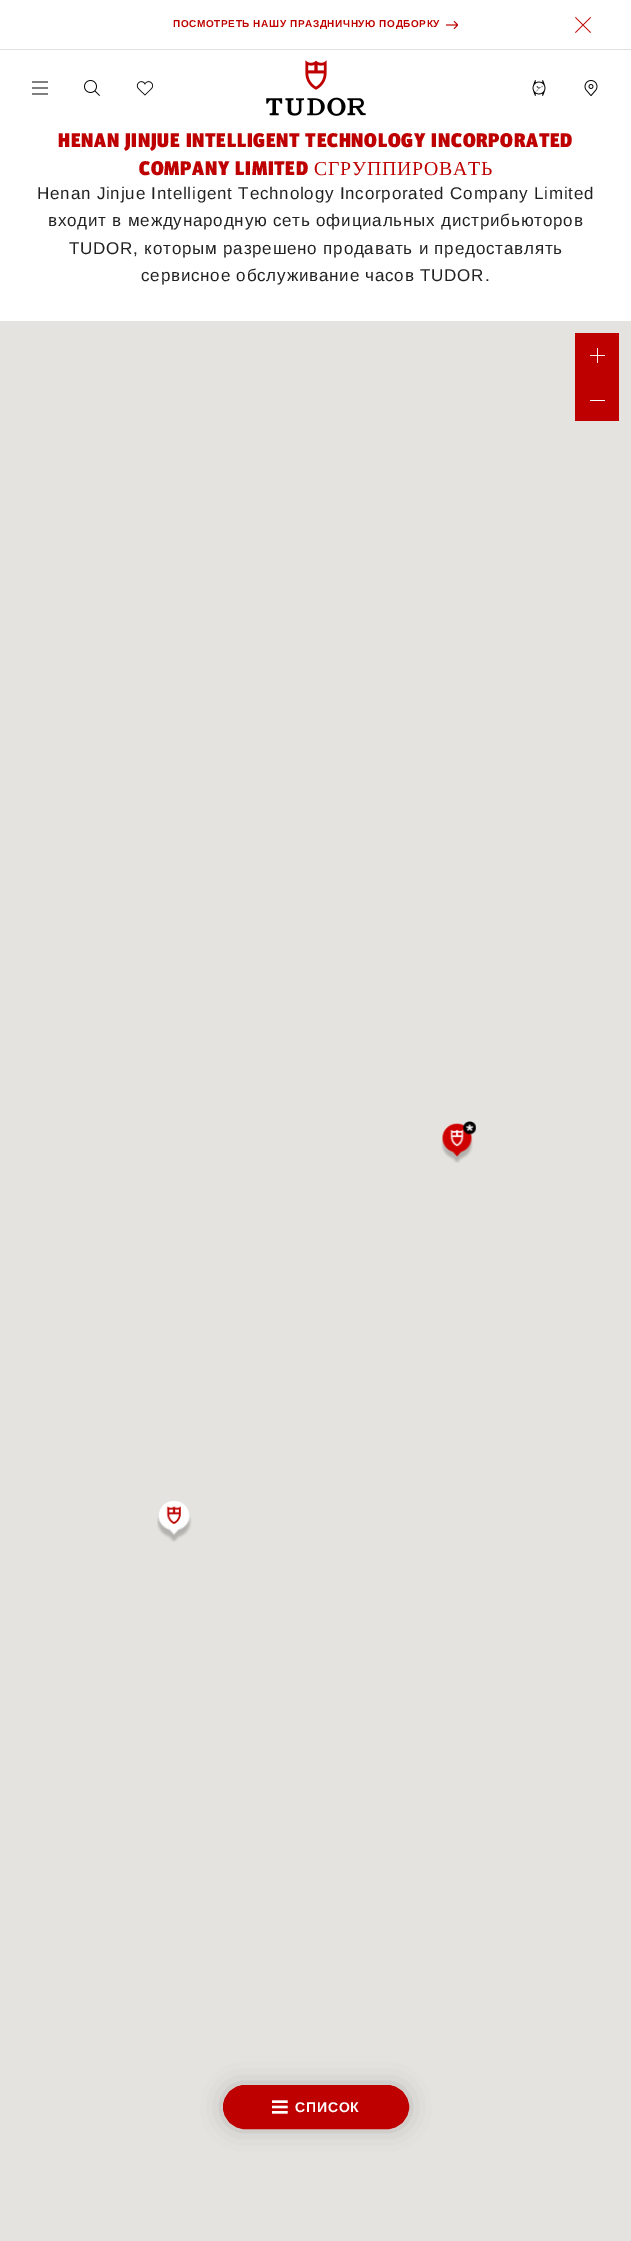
%!PS-Adobe-3.0
%%BoundingBox: 0 0 631 2241
%%LanguageLevel: 3
%%Pages: 1
%%EndComments
%%BeginProlog
/m { moveto } bind def
/f { fill } bind def
/S { stroke } bind def
/q { gsave } bind def
/Q { grestore } bind def
/fn { [ exch dup neg 0 0 3 -1 roll 0 0 ] selectfont } def
/bx { rectfill } def
/al { dup .setfillconstantalpha .setstrokeconstantalpha } def
/rr { 5 dict begin { /r /h /w /y /x } { exch def } forall
  x r add y moveto x w add y 2 copy h add r arct x w add y h add x 1 index r arct
  x y h add x y r arct x y 2 copy exch w add exch r arct closepath end } def
/sh { 12 dict begin { /a /b /q /h /w /y /x } { exch def } forall gsave /was 0 def
  9 -2 -9 { dup b mul 4 div /e exch def 1 sub .425 mul 2.718 exch exp 1 add a .99 .min exch div /now exch def
    1 1 now sub 1 was sub div sub al /was now def
    w h .min e 2 mul add 0 gt { x e sub y e sub w e 2 mul add h e 2 mul add
      q e add b .6 mul add w h .min 2 div e add .min 0 .max rr fill } if } for grestore end } def
/im { 5 dict begin { /h /w /y /x /name } { exch def } forall
  gsave x y translate w h scale
  w h 8 [w 0 0 h 0 0] name (r) file false 3 colorimage grestore end } def
%%EndProlog
%%BeginSetup
<< /PageSize [631 2241] /PageUsesTransparency true >> setpagedevice
%%EndSetup
%%Page: 1 1
0 .pushpdf14devicefilter
0 2241 translate 1 -1 scale
4 setmiterlimit
1 setgray
0 0 631 2241 bx
0.878 setgray
0 49 631 1 bx
/LiberationSans-Bold 10 fn
0.745 0.004 0 setrgbcolor
173 27 m 0.6 0 (ПОСМОТРЕТЬ НАШУ ПРАЗДНИЧНУЮ ПОДБОРКУ) ashow
(image0.raw) 446 20 12 10 im
(image1.raw) 575 17 16 16 im
(image2.raw) 266 60 100 56 im
(image3.raw) 32 81 16 14 im
(image4.raw) 84 80 16 16 im
(image5.raw) 136 81 17 15 im
(image6.raw) 532 80 14 16 im
(image7.raw) 584 80 14 16 im
/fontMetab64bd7-Black 19.75 fn
58 147 m 0.8 0 (HENAN JINJUE INTELLIGENT TECHNOLOGY INCORPORATED) ashow
139 175 m 0.8 0 (COMPANY LIMITED) ashow
/LiberationSerif-Regular 19.75 fn
314 175 m 0.8 0 (СГРУППИРОВАТЬ) ashow
/LiberationSans-Regular 17 fn
0.129 setgray
37 199 m 0.8 0 (Henan Jinjue Intelligent Technology Incorporated Company Limited) ashow
48 226 m 0.8 0 (входит в международную сеть официальных дистрибьюторов) ashow
69 254 m 0.8 0 (TUDOR, которым разрешено продавать и предоставлять) ashow
141 281 m 0.8 0 (сервисное обслуживание часов TUDOR.) ashow
0.898 0.89 0.875 setrgbcolor
0 321 631 1920 bx
(image8.raw) 441 1121 35 42 im
(image9.raw) 157 1500 35 42 im
0.745 0.004 0 setrgbcolor
575 333 44 88 bx
(image10.raw) 590 348 15 15 im
1 setgray
590 400 15 1 bx
0 setgray
228 2090 176 34 17 12.5 0.3 sh
0.745 0.004 0 setrgbcolor
223.5 2085.5 185 43 21.5 rr q f Q
S
(image11.raw) 272 2100 16 14 im
/LiberationSans-Bold 14 fn
1 setgray
295 2112 m 0.8 0 (СПИСОК) ashow
.poppdf14devicefilter showpage
%%EOF
